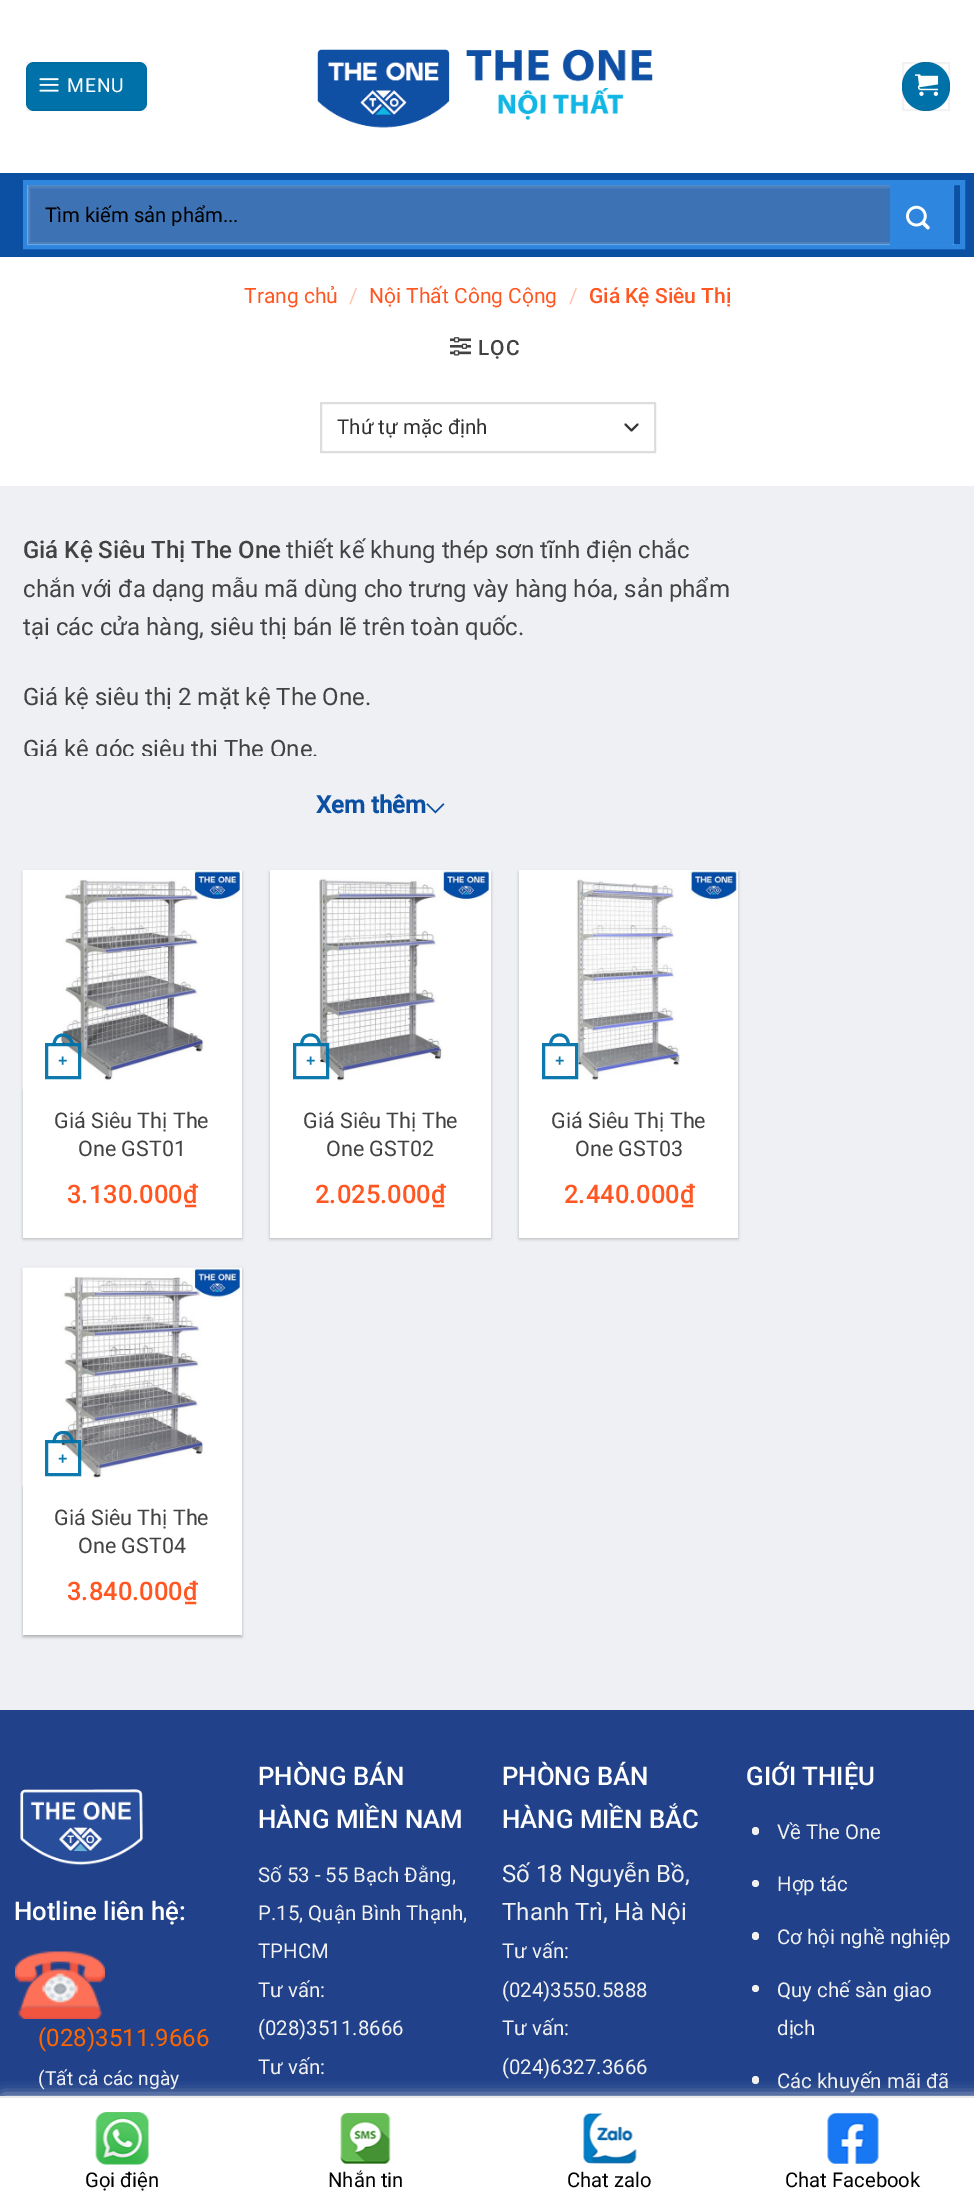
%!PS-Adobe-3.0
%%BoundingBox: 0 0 974 2209
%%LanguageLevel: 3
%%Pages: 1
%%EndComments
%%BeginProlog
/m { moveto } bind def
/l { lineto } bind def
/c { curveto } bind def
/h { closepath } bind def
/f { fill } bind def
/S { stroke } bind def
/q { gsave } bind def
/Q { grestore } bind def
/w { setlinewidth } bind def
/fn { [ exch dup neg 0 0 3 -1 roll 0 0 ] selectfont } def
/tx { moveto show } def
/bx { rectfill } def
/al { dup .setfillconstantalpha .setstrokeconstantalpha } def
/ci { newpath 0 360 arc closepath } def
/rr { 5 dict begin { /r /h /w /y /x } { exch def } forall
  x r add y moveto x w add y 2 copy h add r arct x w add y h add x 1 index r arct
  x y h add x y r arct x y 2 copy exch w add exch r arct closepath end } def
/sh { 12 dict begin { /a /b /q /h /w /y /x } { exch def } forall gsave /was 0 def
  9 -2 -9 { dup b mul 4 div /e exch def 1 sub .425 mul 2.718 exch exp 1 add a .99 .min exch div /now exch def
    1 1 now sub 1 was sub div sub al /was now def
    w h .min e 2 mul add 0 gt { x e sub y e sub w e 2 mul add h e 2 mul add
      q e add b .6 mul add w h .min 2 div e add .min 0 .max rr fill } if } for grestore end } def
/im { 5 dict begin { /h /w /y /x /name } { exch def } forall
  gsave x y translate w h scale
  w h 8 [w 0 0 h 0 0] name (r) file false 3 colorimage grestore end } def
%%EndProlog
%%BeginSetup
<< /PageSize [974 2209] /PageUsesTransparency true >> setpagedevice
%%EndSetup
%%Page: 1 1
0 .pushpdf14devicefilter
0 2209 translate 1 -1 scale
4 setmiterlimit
1 setgray
0 0 974 2209 bx
0 0.447 0.663 setrgbcolor
26 62 121 49 8 rr f
0.05 al
0 setgray
2 w
27 63 119 47 rectstroke
1 al
(image0.raw) 39 78 20 14 im
/Roboto-Regular 19.25 fn
1 setgray
67 92 m 1 0 (MENU) ashow
(image1.raw) 317 49 336 79 im
0 0.447 0.663 setrgbcolor
902 62 48 49 24 rr f
0.05 al
0 setgray
903 63 46 47 rectstroke
1 al
(image2.raw) 915 74 24 22 im
0.047 0.314 0.639 setrgbcolor
0 173 974 84 bx
0.18 0.525 0.871 setrgbcolor
5 w
25.5 182.5 937 64 rectstroke
0.2 al
1 setgray
27 185 927 60 bx
0.09 al
3 w
28.5 186.5 924 57 rectstroke
/Roboto-Regular 20.25 fn
1 al
0 setgray
(Tìm kiếm sản phẩm...) 45 222 tx
0.18 0.525 0.871 setrgbcolor
890 185 63 60 bx
(image3.raw) 906 205 24 25 im
/Roboto-Regular 21 fn
1 0.337 0.133 setrgbcolor
(Trang chủ) 244 303 tx
1 0.769 0.698 setrgbcolor
(/) 349 303 tx
1 0.337 0.133 setrgbcolor
(Nội Thất Công Cộng) 369 303 tx
1 0.769 0.698 setrgbcolor
(/) 569 303 tx
/Roboto-Medium 21 fn
1 0.337 0.133 setrgbcolor
(Giá Kệ Siêu Thị) 589 303 tx
(image4.raw) 450 337 21 19 im
0.259 setgray
478 355 m 1 0 (LỌC) ashow
0.2 setgray
2 w
1 setlinecap
1 setlinejoin
625.5 424.5 m 631.5 430.5 l 637.5 424.5 l S
0.867 setgray
0 setlinecap
0 setlinejoin
321 403 334 49 rectstroke
/Roboto-Regular 20.5 fn
0.2 setgray
(Thứ tự mặc định) 337 434 tx
0.937 0.941 0.953 setrgbcolor
0 486 974 1224 bx
/Roboto-Medium 24 fn
0.259 setgray
(Giá Kệ Siêu Thị The One) 23 558 tx
/Roboto-Regular 24 fn
(thiết kế khung thép sơn tĩnh điện chắc) 286 558 tx
(chắn với đa dạng mẫu mã dùng cho trưng vày hàng hóa, sản phẩm) 23 597 tx
(tại các cửa hàng, siêu thị bán lẽ trên toàn quốc.) 23 635 tx
(Giá kệ siêu thị 2 mặt kệ The One.) 23 705 tx
q
23 531 715 225 rectclip
(Giá kệ góc siêu thị The One.) 23 757 tx
Q
/Roboto-Bold 24 fn
0.047 0.314 0.639 setrgbcolor
(Xem thêm) 316 813 tx
/FreeSerif-Bold 24 fn
(⌵) 426 813 tx
0 setgray
23 872 219 367 0 1.5 0.24 sh
1 setgray
23 870 219 368 bx
(image5.raw) 22 870 219 219 im
0.95 al
0 0.447 0.663 setrgbcolor
3 w
46.5 1044.5 33 33 rectstroke
63 1033.5 m 70 1033.5 73.5 1039 73.5 1045.5 c 52.5 1045.5 l 52.5 1039 56 1033.5 63 1033.5 c h 63 1036.5 m 68.5 1036.5 70.5 1041 70.5 1045.5 c 55.5 1045.5 l 55.5 1041 57.5 1036.5 63 1036.5 c h eofill
/LiberationSans-Bold 16 fn
1 al
0.051 0.475 0.678 setrgbcolor
(+) 58 1066 tx
/Roboto-Regular 21.5 fn
0.259 setgray
(Giá Siêu Thị The) 54 1128 tx
(One GST01) 78 1156 tx
/Roboto-Medium 25.5 fn
1 0.337 0.133 setrgbcolor
(3.130.000₫) 67 1203 tx
0 setgray
270 872 221 367 0 1.5 0.24 sh
1 setgray
270 870 221 368 bx
(image6.raw) 319 870 171 211 im
0.95 al
0 0.447 0.663 setrgbcolor
294.5 1044.5 33 33 rectstroke
310.5 1033.5 m 317.5 1033.5 321 1039 321 1045.5 c 300 1045.5 l 300 1039 303.5 1033.5 310.5 1033.5 c h 310.5 1036.5 m 316 1036.5 318 1041 318 1045.5 c 303 1045.5 l 303 1041 305 1036.5 310.5 1036.5 c h eofill
/LiberationSans-Bold 16 fn
1 al
0.051 0.475 0.678 setrgbcolor
(+) 306 1066 tx
/Roboto-Regular 21.5 fn
0.259 setgray
(Giá Siêu Thị The) 303 1128 tx
(One GST02) 326 1156 tx
/Roboto-Medium 25.5 fn
1 0.337 0.133 setrgbcolor
(2.025.000₫) 315 1203 tx
0 setgray
519 872 219 367 0 1.5 0.24 sh
1 setgray
519 870 219 368 bx
(image7.raw) 576 870 161 210 im
0.95 al
0 0.447 0.663 setrgbcolor
543.5 1044.5 33 33 rectstroke
1 al
0.051 0.475 0.678 setrgbcolor
559.5 1033.5 m 566.5 1033.5 570 1039 570 1045.5 c 549 1045.5 l 549 1039 552.5 1033.5 559.5 1033.5 c h 559.5 1036.5 m 565 1036.5 567 1041 567 1045.5 c 552 1045.5 l 552 1041 554 1036.5 559.5 1036.5 c h eofill
/LiberationSans-Bold 16 fn
(+) 555 1066 tx
/Roboto-Regular 21.5 fn
0.259 setgray
(Giá Siêu Thị The) 551 1128 tx
(One GST03) 575 1156 tx
/Roboto-Medium 25.5 fn
1 0.337 0.133 setrgbcolor
(2.440.000₫) 564 1203 tx
0 setgray
23 1269 219 368 0 1.5 0.24 sh
26 1272 213 362 0 2 0.12 sh
1 setgray
23 1268 219 367 bx
(image8.raw) 22 1267 219 219 im
0.95 al
0 0.447 0.663 setrgbcolor
46.5 1441.5 33 33 rectstroke
63 1431 m 70 1431 73.5 1436.5 73.5 1443 c 52.5 1443 l 52.5 1436.5 56 1431 63 1431 c h 63 1434 m 68.5 1434 70.5 1438.5 70.5 1443 c 55.5 1443 l 55.5 1438.5 57.5 1434 63 1434 c h eofill
/LiberationSans-Bold 16 fn
1 al
0.051 0.475 0.678 setrgbcolor
(+) 58 1464 tx
/Roboto-Regular 21.5 fn
0.259 setgray
(Giá Siêu Thị The) 54 1525 tx
(One GST04) 78 1553 tx
/Roboto-Medium 25.5 fn
1 0.337 0.133 setrgbcolor
(3.840.000₫) 67 1600 tx
0.129 0.259 0.541 setrgbcolor
0 1710 974 386 bx
(image9.raw) 20 1789 123 77 im
/Roboto-Medium 25.75 fn
1 setgray
(Hotline liên hệ:) 14 1920 tx
(image10.raw) 15 1951 90 68 im
/Roboto-Regular 24 fn
1 0.4 0 setrgbcolor
(\(028\)3511.9666) 38 2046 tx
/Roboto-Regular 19.25 fn
0.945 setgray
(\(Tất cả các ngày) 38 2085 tx
/Roboto-Medium 25.75 fn
1 setgray
(PHÒNG BÁN) 258 1785 tx
(HÀNG MIỀN NAM) 258 1828 tx
/Roboto-Regular 20.4 fn
0.945 setgray
(Số 53 - 55 Bạch Đằng,) 258 1882 tx
(P.15, Quận Bình Thạnh,) 258 1920 tx
(TPHCM) 258 1958 tx
(Tư vấn:) 258 1997 tx
(\(028\)3511.8666) 258 2035 tx
(Tư vấn:) 258 2074 tx
/Roboto-Medium 25.75 fn
1 setgray
(PHÒNG BÁN) 502 1785 tx
(HÀNG MIỀN BẮC) 502 1828 tx
/Roboto-Regular 24 fn
0.945 setgray
(Số 18 Nguyễn Bồ,) 502 1882 tx
(Thanh Trì, Hà Nội) 502 1920 tx
/Roboto-Regular 20.4 fn
(Tư vấn:) 502 1958 tx
(\(024\)3550.5888) 502 1997 tx
(Tư vấn:) 502 2035 tx
(\(024\)6327.3666) 502 2074 tx
/Roboto-Medium 25.75 fn
1 setgray
(GIỚI THIỆU) 746 1785 tx
0.945 setgray
752 1827 7 8 3.5 rr f
/Roboto-Regular 20.4 fn
(Về The One) 777 1839 tx
755.5 1883.5 3.5 ci f
(Hợp tác) 777 1891 tx
752 1932 7 8 3.5 rr f
(Cơ hội nghề nghiệp) 777 1944 tx
755.5 1988.5 3.5 ci f
(Quy chế sàn giao) 777 1997 tx
(dịch) 777 2035 tx
752 2076 7 8 3.5 rr f
(Các khuyến mãi đã) 777 2088 tx
0.871 setgray
3 2097 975 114 0 7 1 sh
1 setgray
0 2098 974 111 bx
0.918 setgray
0 2096 974 2 bx
(image11.raw) 95 2112 54 53 im
/Roboto-Regular 20.25 fn
0 setgray
(Gọi điện) 85 2187 tx
(image12.raw) 340 2112 51 52 im
(Nhắn tin) 328 2187 tx
(image13.raw) 583 2112 54 52 im
(Chat zalo) 567 2187 tx
(image14.raw) 827 2112 52 52 im
(Chat Facebook) 785 2187 tx
.poppdf14devicefilter showpage
%%EOF
